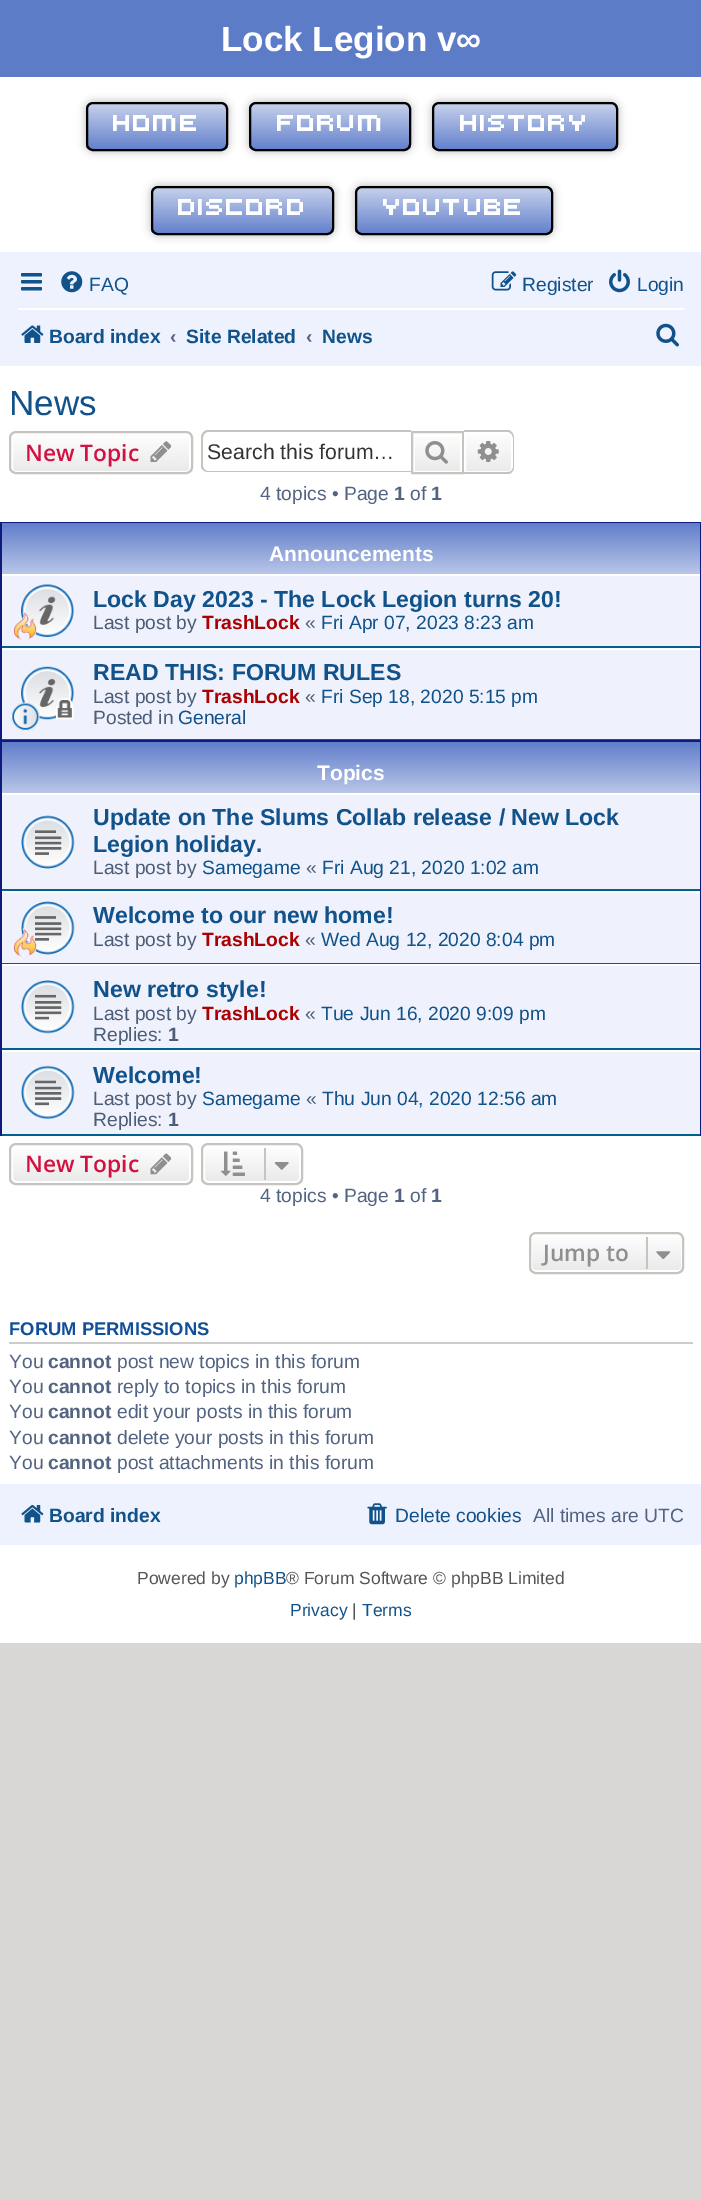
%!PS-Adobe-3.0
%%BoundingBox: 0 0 701 2200
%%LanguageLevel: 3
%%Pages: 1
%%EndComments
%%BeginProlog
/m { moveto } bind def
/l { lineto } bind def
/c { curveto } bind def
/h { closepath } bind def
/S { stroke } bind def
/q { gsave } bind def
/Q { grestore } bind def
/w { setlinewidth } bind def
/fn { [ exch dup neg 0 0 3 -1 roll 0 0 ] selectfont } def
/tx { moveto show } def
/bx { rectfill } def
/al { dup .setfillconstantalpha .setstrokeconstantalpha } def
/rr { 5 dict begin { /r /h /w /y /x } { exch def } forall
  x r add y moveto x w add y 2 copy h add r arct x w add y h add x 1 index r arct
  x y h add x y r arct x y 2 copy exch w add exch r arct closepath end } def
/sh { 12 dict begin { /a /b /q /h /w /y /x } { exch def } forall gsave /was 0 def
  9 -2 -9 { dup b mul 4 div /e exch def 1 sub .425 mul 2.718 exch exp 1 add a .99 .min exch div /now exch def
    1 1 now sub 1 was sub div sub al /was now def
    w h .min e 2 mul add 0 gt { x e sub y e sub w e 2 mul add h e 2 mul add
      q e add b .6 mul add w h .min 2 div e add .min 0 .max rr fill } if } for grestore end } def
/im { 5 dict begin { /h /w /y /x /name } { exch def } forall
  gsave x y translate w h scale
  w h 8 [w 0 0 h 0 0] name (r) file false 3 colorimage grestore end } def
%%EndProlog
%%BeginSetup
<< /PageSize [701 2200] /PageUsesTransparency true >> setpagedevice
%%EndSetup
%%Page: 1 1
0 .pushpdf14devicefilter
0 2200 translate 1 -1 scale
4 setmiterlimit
0.851 0.839 0.839 setrgbcolor
0 0 701 2200 bx
1 setgray
0 77 701 1566 bx
0.365 0.486 0.784 setrgbcolor
0 0 701 77 bx
/LiberationSans-Bold 35 fn
1 setgray
(Lock Legion v∞) 221 51 tx
0 setgray
86 102 142 49 7 4.5 0.3 sh
q
86 102 142 49 7 rr clip newpath
q 86 103 m 228 103 l 228 149 l 86 149 l h clip newpath
<< /ShadingType 2 /ColorSpace /DeviceRGB /Coords [157 103 157 149] /Extend [true true] /Function << /FunctionType 2 /Domain [0 1] /C0 [0.784 0.824 0.925] /C1 [0.392 0.506 0.8] /N 1 >> >> shfill Q
Q
2 w
87 103 140 47 6 rr S
/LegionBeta-Bold 24.5 fn
1 setgray
113 131 m 1.75 0 (HOME) ashow
0 setgray
249 102 162 49 7 4.5 0.3 sh
q
249 102 162 49 7 rr clip newpath
q 249 103 m 411 103 l 411 149 l 249 149 l h clip newpath
<< /ShadingType 2 /ColorSpace /DeviceRGB /Coords [330 103 330 149] /Extend [true true] /Function << /FunctionType 2 /Domain [0 1] /C0 [0.784 0.824 0.925] /C1 [0.392 0.506 0.8] /N 1 >> >> shfill Q
Q
250 103 160 47 6 rr S
1 setgray
277 131 m 1.75 0 (FORUM) ashow
0 setgray
432 102 186 49 7 4.5 0.3 sh
q
432 102 186 49 7 rr clip newpath
q 432 103 m 618 103 l 618 149 l 432 149 l h clip newpath
<< /ShadingType 2 /ColorSpace /DeviceRGB /Coords [525 103 525 149] /Extend [true true] /Function << /FunctionType 2 /Domain [0 1] /C0 [0.784 0.824 0.925] /C1 [0.392 0.506 0.8] /N 1 >> >> shfill Q
Q
433 103 184 47 6 rr S
1 setgray
460 131 m 1.75 0 (HISTORY) ashow
0 setgray
151 186 183 49 7 4.5 0.3 sh
q
151 186 183 49 7 rr clip newpath
q 151 187 m 334 187 l 334 233 l 151 233 l h clip newpath
<< /ShadingType 2 /ColorSpace /DeviceRGB /Coords [242 187 242 233] /Extend [true true] /Function << /FunctionType 2 /Domain [0 1] /C0 [0.784 0.824 0.925] /C1 [0.392 0.506 0.8] /N 1 >> >> shfill Q
Q
152 187 181 47 6 rr S
1 setgray
178 215 m 1.75 0 (DISCORD) ashow
0 setgray
355 186 198 49 7 4.5 0.3 sh
q
355 186 198 49 7 rr clip newpath
q 355 187 m 553 187 l 553 233 l 355 233 l h clip newpath
<< /ShadingType 2 /ColorSpace /DeviceRGB /Coords [454 187 454 233] /Extend [true true] /Function << /FunctionType 2 /Domain [0 1] /C0 [0.784 0.824 0.925] /C1 [0.392 0.506 0.8] /N 1 >> >> shfill Q
Q
356 187 196 47 6 rr S
1 setgray
383 215 m 1.75 0 (YOUTUBE) ashow
0.933 0.949 0.996 setrgbcolor
0 252 701 114 bx
(image0.raw) 21 273 21 18 im
(image1.raw) 61 271 22 22 im
/LiberationSans-Regular 19.25 fn
0.063 0.322 0.537 setrgbcolor
(FAQ) 89 291 tx
(image2.raw) 491 271 26 20 im
(Register) 522 291 tx
(image3.raw) 609 269 21 24 im
(Login) 637 291 tx
1 setgray
18 308 666 2 bx
(image4.raw) 21 325 23 18 im
/LiberationSans-Bold 19.25 fn
0.063 0.322 0.537 setrgbcolor
(Board index) 49 343 tx
0.325 0.392 0.51 setrgbcolor
(‹) 170 343 tx
0.063 0.322 0.537 setrgbcolor
(Site Related) 186 343 tx
0.325 0.392 0.51 setrgbcolor
(‹) 306 343 tx
0.063 0.322 0.537 setrgbcolor
(News) 322 343 tx
(image5.raw) 656 323 23 24 im
/LiberationSans-Regular 35 fn
(News) 9 415 tx
q
9 431 184 43 7 rr clip newpath
q 9 432 m 193 432 l 193 473 l 9 473 l h clip newpath
<< /ShadingType 2 /ColorSpace /DeviceRGB /Coords [101 432 101 473] /Extend [true true] /Function << /FunctionType 2 /Domain [0 1] /C0 [1 1 1] /C1 [0.914 0.914 0.914] /N 1 >> >> shfill Q
Q
1 setgray
12 433 178 39 4 rr S
0.78 0.765 0.749 setrgbcolor
10 432 182 41 6 rr S
/OpenSans-SemiBold 22.75 fn
0.827 0.067 0.255 setrgbcolor
(New Topic) 25 461 tx
(image6.raw) 150 441 22 21 im
0.78 0.765 0.749 setrgbcolor
208 430 m 411 430 l 411 472 l 208 472 l 204 472 201 469 201 466 c 201 438 l 201 434 204 430 208 430 c h 208 432 m 411 432 l 411 471 l 208 471 l 205 471 203 468 203 466 c 203 438 l 203 435 205 432 208 432 c h eofill
/LiberationSans-Regular 21.25 fn
0.2 setgray
(Search this forum…) 207 459 tx
q 415 437 m 460 437 l 460 471 l 415 471 l h clip newpath
<< /ShadingType 2 /ColorSpace /DeviceRGB /Coords [438 432 438 473] /Extend [true true] /Function << /FunctionType 2 /Domain [0 1] /C0 [1 1 1] /C1 [0.914 0.914 0.914] /N 1 >> >> shfill Q
0.78 0.765 0.749 setrgbcolor
412 432 51 41 rectstroke
(image7.raw) 425 441 23 23 im
q 465 433 m 508 433 l 510 433 512 435 512 437 c 512 468 l 512 470 510 472 508 472 c 465 472 l h clip newpath
<< /ShadingType 2 /ColorSpace /DeviceRGB /Coords [488 432 488 473] /Extend [true true] /Function << /FunctionType 2 /Domain [0 1] /C0 [1 1 1] /C1 [0.914 0.914 0.914] /N 1 >> >> shfill Q
1 setgray
465 433 m 508 433 l 510 433 512 435 512 437 c 512 468 l 512 470 510 472 508 472 c 465 472 l h S
0.78 0.765 0.749 setrgbcolor
464 430 m 508 430 l 511 430 514 434 514 438 c 514 467 l 514 471 511 474 508 474 c 464 474 l h 464 432 m 508 432 l 510 432 513 435 513 438 c 513 467 l 513 470 510 472 508 472 c 464 472 l h eofill
(image8.raw) 477 441 22 21 im
/LiberationSans-Regular 19.25 fn
0.325 0.392 0.51 setrgbcolor
(4 topics • Page) 260 500 tx
/LiberationSans-Bold 19.25 fn
(1) 394 500 tx
/LiberationSans-Regular 19.25 fn
(of) 410 500 tx
/LiberationSans-Bold 19.25 fn
(1) 431 500 tx
0.063 0.102 0.486 setrgbcolor
0 522 701 1 bx
700 522 1 218 bx
0 522 2 218 bx
q 2 523 m 700 523 l 700 574 l 2 574 l h clip newpath
<< /ShadingType 2 /ColorSpace /DeviceRGB /Coords [351 523 351 574] /Extend [true true] /Function << /FunctionType 2 /Domain [0 1] /C0 [0.38 0.494 0.796] /C1 [0.725 0.776 0.91] /N 1 >> >> shfill Q
/LiberationSans-Bold 21 fn
1 setgray
(Announcements) 269 561 tx
0.937 0.949 0.992 setrgbcolor
2 576 698 70 bx
0 0.376 0.561 setrgbcolor
2 646 698 2 bx
(image9.raw) 21 584 53 53 im
(image10.raw) 13 611 24 29 im
/LiberationSans-Bold 23.1 fn
0.063 0.322 0.537 setrgbcolor
(Lock Day 2023 - The Lock Legion turns 20!) 93 607 tx
/LiberationSans-Regular 19.25 fn
0.298 0.365 0.467 setrgbcolor
(Last post by) 93 629 tx
/LiberationSans-Bold 19.25 fn
0.667 0 0 setrgbcolor
(TrashLock) 202 629 tx
/LiberationSans-Regular 19.25 fn
0.298 0.365 0.467 setrgbcolor
(«) 305 629 tx
0.063 0.322 0.537 setrgbcolor
(Fri Apr 07, 2023 8:23 am) 321 629 tx
0.937 0.949 0.992 setrgbcolor
2 650 698 89 bx
0 0.376 0.561 setrgbcolor
2 739 698 1 bx
(image11.raw) 21 666 53 54 im
(image12.raw) 11 702 29 29 im
/LiberationSans-Bold 23.1 fn
0.063 0.322 0.537 setrgbcolor
(READ THIS: FORUM RULES) 93 680 tx
/LiberationSans-Regular 19.25 fn
0.298 0.365 0.467 setrgbcolor
(Last post by) 93 703 tx
/LiberationSans-Bold 19.25 fn
0.667 0 0 setrgbcolor
(TrashLock) 202 703 tx
/LiberationSans-Regular 19.25 fn
0.298 0.365 0.467 setrgbcolor
(«) 305 703 tx
0.063 0.322 0.537 setrgbcolor
(Fri Sep 18, 2020 5:15 pm) 321 703 tx
0.298 0.365 0.467 setrgbcolor
(Posted in) 93 724 tx
0.063 0.322 0.537 setrgbcolor
(General) 178 724 tx
0.063 0.102 0.486 setrgbcolor
0 740 701 2 bx
700 740 1 396 bx
0 740 2 396 bx
q 2 742 m 700 742 l 700 793 l 2 793 l h clip newpath
<< /ShadingType 2 /ColorSpace /DeviceRGB /Coords [351 742 351 793] /Extend [true true] /Function << /FunctionType 2 /Domain [0 1] /C0 [0.38 0.494 0.796] /C1 [0.725 0.776 0.91] /N 1 >> >> shfill Q
/LiberationSans-Bold 21 fn
1 setgray
(Topics) 317 780 tx
0.937 0.949 0.992 setrgbcolor
2 795 698 94 bx
0 0.376 0.561 setrgbcolor
2 889 698 2 bx
(image13.raw) 21 815 54 54 im
/LiberationSans-Bold 23.1 fn
0.063 0.322 0.537 setrgbcolor
(Update on The Slums Collab release / New Lock) 93 825 tx
(Legion holiday.) 93 852 tx
/LiberationSans-Regular 19.25 fn
0.298 0.365 0.467 setrgbcolor
(Last post by) 93 874 tx
0.063 0.322 0.537 setrgbcolor
(Samegame) 202 874 tx
0.298 0.365 0.467 setrgbcolor
(«) 306 874 tx
0.063 0.322 0.537 setrgbcolor
(Fri Aug 21, 2020 1:02 am) 322 874 tx
0.937 0.949 0.992 setrgbcolor
2 893 698 70 bx
0 0.376 0.561 setrgbcolor
2 963 698 1 bx
(image14.raw) 21 901 54 54 im
(image15.raw) 13 928 24 29 im
/LiberationSans-Bold 23.1 fn
0.063 0.322 0.537 setrgbcolor
(Welcome to our new home!) 93 923 tx
/LiberationSans-Regular 19.25 fn
0.298 0.365 0.467 setrgbcolor
(Last post by) 93 946 tx
/LiberationSans-Bold 19.25 fn
0.667 0 0 setrgbcolor
(TrashLock) 202 946 tx
/LiberationSans-Regular 19.25 fn
0.298 0.365 0.467 setrgbcolor
(«) 305 946 tx
0.063 0.322 0.537 setrgbcolor
(Wed Aug 12, 2020 8:04 pm) 321 946 tx
0.937 0.949 0.992 setrgbcolor
2 966 698 82 bx
0 0.376 0.561 setrgbcolor
2 1048 698 2 bx
(image16.raw) 21 980 54 54 im
/LiberationSans-Bold 23.1 fn
0.063 0.322 0.537 setrgbcolor
(New retro style!) 93 997 tx
/LiberationSans-Regular 19.25 fn
0.298 0.365 0.467 setrgbcolor
(Last post by) 93 1020 tx
/LiberationSans-Bold 19.25 fn
0.667 0 0 setrgbcolor
(TrashLock) 202 1020 tx
/LiberationSans-Regular 19.25 fn
0.298 0.365 0.467 setrgbcolor
(«) 305 1020 tx
0.063 0.322 0.537 setrgbcolor
(Tue Jun 16, 2020 9:09 pm) 321 1020 tx
0.298 0.365 0.467 setrgbcolor
(Replies:) 93 1041 tx
/LiberationSans-Bold 19.25 fn
(1) 168 1041 tx
0.937 0.949 0.992 setrgbcolor
2 1052 698 82 bx
0 0.376 0.561 setrgbcolor
2 1134 698 2 bx
(image17.raw) 21 1065 54 55 im
/LiberationSans-Bold 23.1 fn
0.063 0.322 0.537 setrgbcolor
(Welcome!) 93 1083 tx
/LiberationSans-Regular 19.25 fn
0.298 0.365 0.467 setrgbcolor
(Last post by) 93 1105 tx
0.063 0.322 0.537 setrgbcolor
(Samegame) 202 1105 tx
0.298 0.365 0.467 setrgbcolor
(«) 306 1105 tx
0.063 0.322 0.537 setrgbcolor
(Thu Jun 04, 2020 12:56 am) 322 1105 tx
0.298 0.365 0.467 setrgbcolor
(Replies:) 93 1126 tx
/LiberationSans-Bold 19.25 fn
(1) 168 1126 tx
q
9 1143 184 42 7 rr clip newpath
q 9 1145 m 193 1145 l 193 1183 l 9 1183 l h clip newpath
<< /ShadingType 2 /ColorSpace /DeviceRGB /Coords [101 1145 101 1183] /Extend [true true] /Function << /FunctionType 2 /Domain [0 1] /C0 [1 1 1] /C1 [0.914 0.914 0.914] /N 1 >> >> shfill Q
Q
1 setgray
12 1146 178 36 4 rr S
0.78 0.765 0.749 setrgbcolor
10 1144 182 40 6 rr S
/OpenSans-SemiBold 22.75 fn
0.827 0.067 0.255 setrgbcolor
(New Topic) 25 1172 tx
(image18.raw) 150 1153 22 22 im
q
201 1143 102 42 7 rr clip newpath
q 201 1145 m 303 1145 l 303 1183 l 201 1183 l h clip newpath
<< /ShadingType 2 /ColorSpace /DeviceRGB /Coords [252 1145 252 1183] /Extend [true true] /Function << /FunctionType 2 /Domain [0 1] /C0 [1 1 1] /C1 [0.914 0.914 0.914] /N 1 >> >> shfill Q
Q
1 setgray
204 1146 96 36 4 rr S
0.78 0.765 0.749 setrgbcolor
202 1144 100 40 6 rr S
(image19.raw) 221 1151 24 25 im
264 1148 2 32 bx
(image20.raw) 274 1162 15 8 im
/LiberationSans-Regular 19.25 fn
0.325 0.392 0.51 setrgbcolor
(4 topics • Page) 260 1202 tx
/LiberationSans-Bold 19.25 fn
(1) 394 1202 tx
/LiberationSans-Regular 19.25 fn
(of) 410 1202 tx
/LiberationSans-Bold 19.25 fn
(1) 431 1202 tx
q
529 1232 155 42 7 rr clip newpath
q 529 1234 m 684 1234 l 684 1272 l 529 1272 l h clip newpath
<< /ShadingType 2 /ColorSpace /DeviceRGB /Coords [606 1234 606 1272] /Extend [true true] /Function << /FunctionType 2 /Domain [0 1] /C0 [1 1 1] /C1 [0.914 0.914 0.914] /N 1 >> >> shfill Q
Q
1 setgray
531 1235 151 36 4 rr S
0.78 0.765 0.749 setrgbcolor
530 1233 153 40 6 rr S
/OpenSans-SemiBold 22.75 fn
0.561 setgray
(Jump to) 543 1261 tx
0.78 0.765 0.749 setrgbcolor
646 1237 2 32 bx
(image21.raw) 656 1251 15 8 im
0.8 setgray
9 1342 684 2 bx
/LiberationSans-Bold 18.4 fn
0.067 0.314 0.596 setrgbcolor
(FORUM PERMISSIONS) 9 1335 tx
/LiberationSans-Regular 19.25 fn
0.325 0.392 0.51 setrgbcolor
(You) 9 1368 tx
/LiberationSans-Bold 19.25 fn
(cannot) 48 1368 tx
/LiberationSans-Regular 19.25 fn
(post new topics in this forum) 117 1368 tx
(You) 9 1393 tx
/LiberationSans-Bold 19.25 fn
(cannot) 48 1393 tx
/LiberationSans-Regular 19.25 fn
(reply to topics in this forum) 117 1393 tx
(You) 9 1418 tx
/LiberationSans-Bold 19.25 fn
(cannot) 48 1418 tx
/LiberationSans-Regular 19.25 fn
(edit your posts in this forum) 117 1418 tx
(You) 9 1444 tx
/LiberationSans-Bold 19.25 fn
(cannot) 48 1444 tx
/LiberationSans-Regular 19.25 fn
(delete your posts in this forum) 117 1444 tx
(You) 9 1469 tx
/LiberationSans-Bold 19.25 fn
(cannot) 48 1469 tx
/LiberationSans-Regular 19.25 fn
(post attachments in this forum) 117 1469 tx
0.933 0.949 0.996 setrgbcolor
0 1484 701 61 bx
(image22.raw) 21 1505 23 18 im
/LiberationSans-Bold 19.25 fn
0.063 0.322 0.537 setrgbcolor
(Board index) 49 1522 tx
(image23.raw) 367 1503 20 22 im
/LiberationSans-Regular 19.25 fn
(Delete cookies) 395 1522 tx
0.325 0.392 0.51 setrgbcolor
(All times are UTC) 533 1522 tx
/LiberationSans-Regular 17.5 fn
0.333 setgray
(Powered by) 137 1584 tx
0.063 0.322 0.537 setrgbcolor
(phpBB) 234 1584 tx
0.333 setgray
(® Forum Software © phpBB Limited) 286 1584 tx
0.063 0.322 0.537 setrgbcolor
(Privacy) 290 1616 tx
0.333 setgray
(|) 352 1616 tx
0.063 0.322 0.537 setrgbcolor
(Terms) 362 1616 tx
.poppdf14devicefilter showpage
%%EOF
